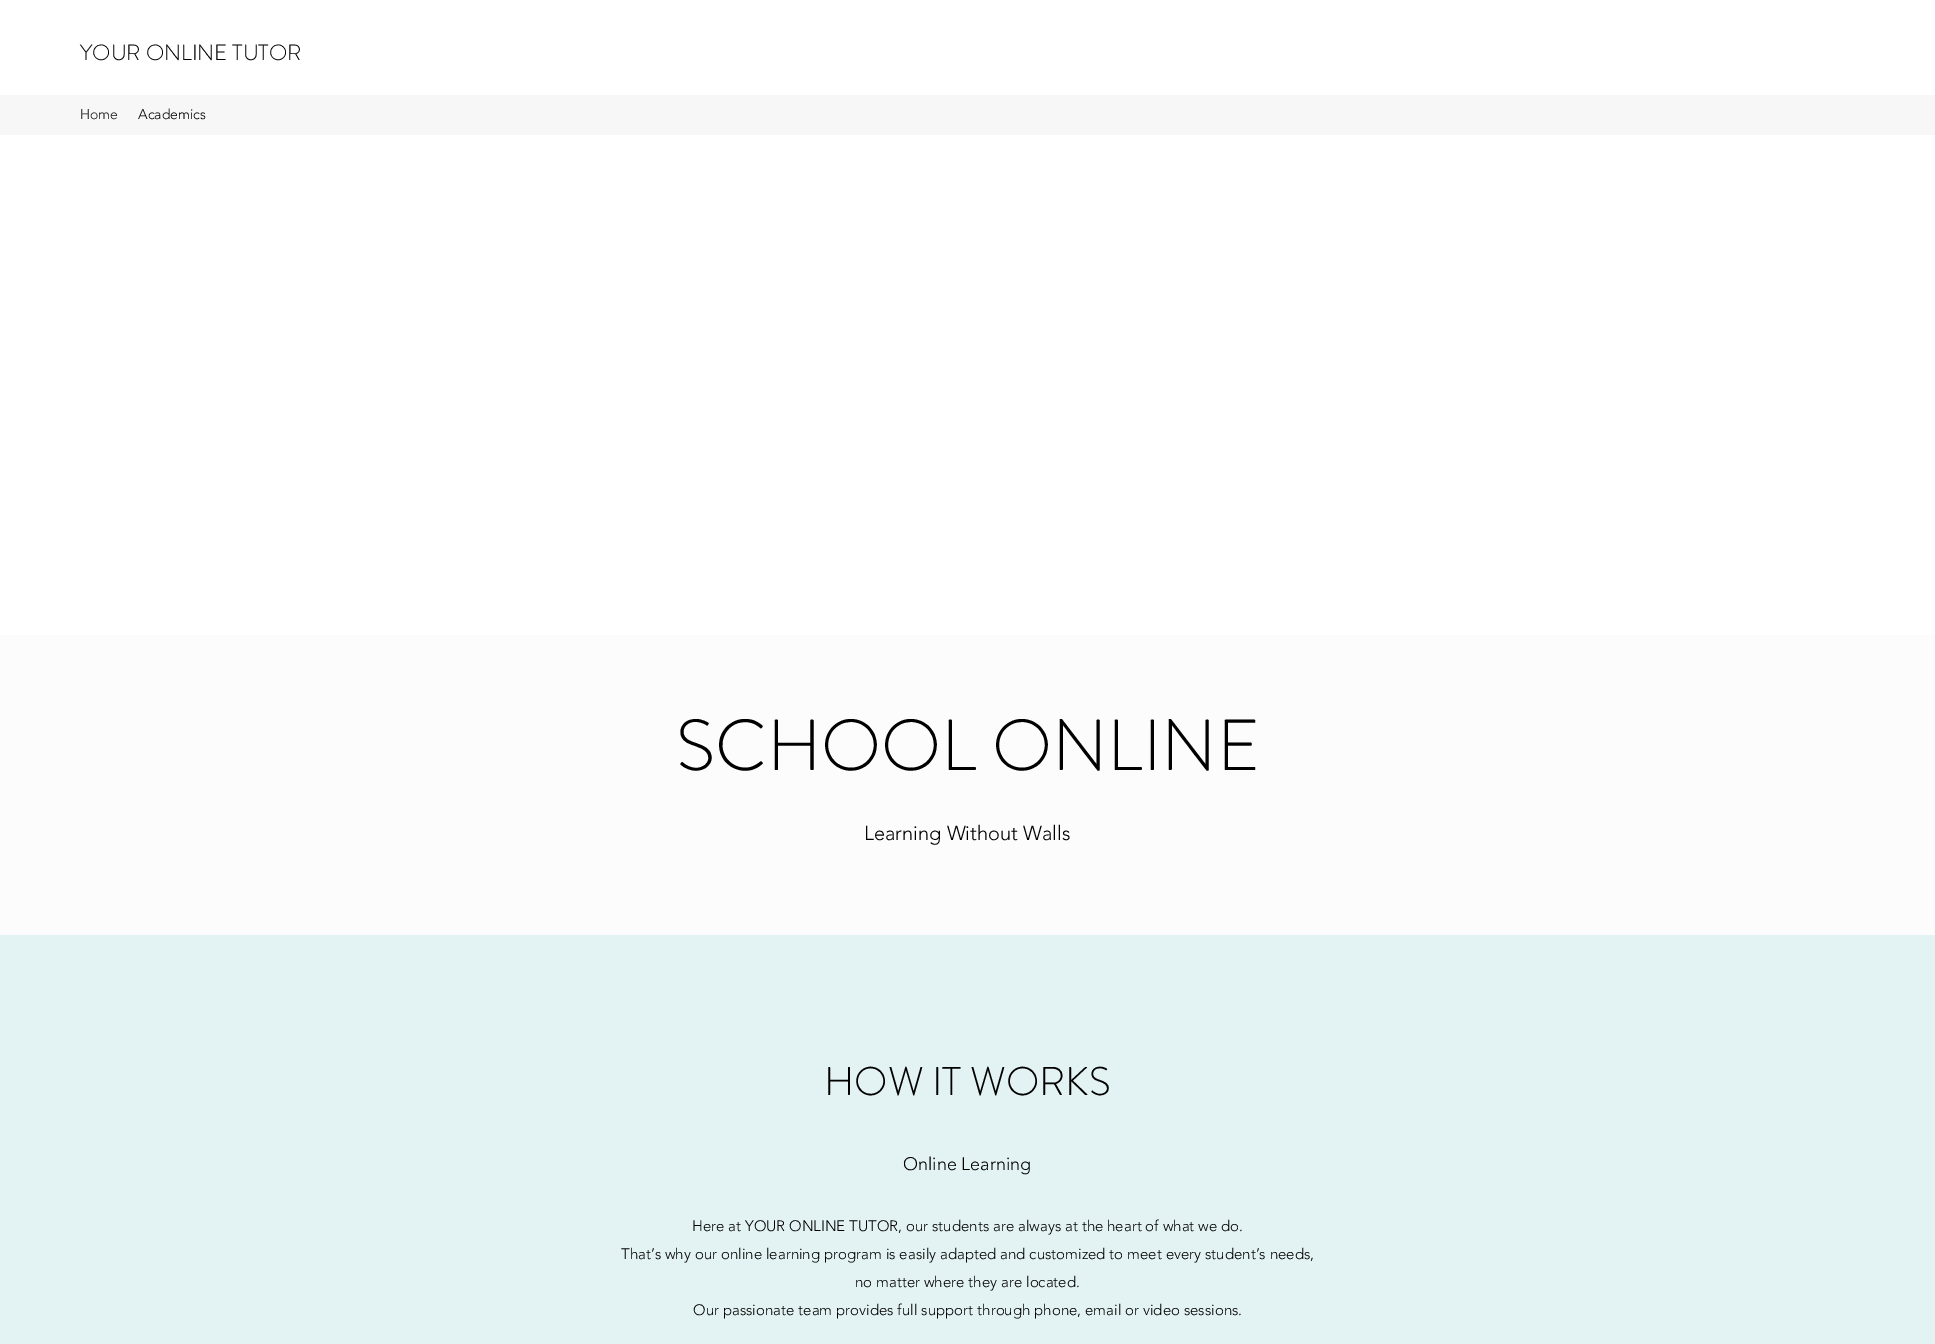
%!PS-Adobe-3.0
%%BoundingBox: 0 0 1935 1344
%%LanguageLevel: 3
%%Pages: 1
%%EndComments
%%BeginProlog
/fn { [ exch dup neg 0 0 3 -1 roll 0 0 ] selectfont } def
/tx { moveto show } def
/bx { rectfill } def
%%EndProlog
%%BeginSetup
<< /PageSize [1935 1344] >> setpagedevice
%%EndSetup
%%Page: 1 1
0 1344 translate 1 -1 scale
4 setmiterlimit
1 setgray
0 0 1935 1344 bx
/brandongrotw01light-Light 22 fn
0 setgray
(YOUR ONLINE TUTOR) 80 60 tx
0.969 setgray
0 95 1935 40 bx
/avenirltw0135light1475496-Light 14 fn
0.098 setgray
(Home) 80 119 tx
0 setgray
(Academics) 138 119 tx
0.988 setgray
0 635 1935 300 bx
/brandongrotw01light-Light 72 fn
0 setgray
(SCHOOL ONLINE) 676 770 tx
/avenirltw0135light1475496-Light 20 fn
(Learning Without Walls) 864 840 tx
0.89 0.949 0.953 setrgbcolor
0 935 1935 409 bx
/brandongrotw01light-Light 40 fn
0 setgray
(HOW IT WORKS) 824 1095 tx
/avenirltw0135light1475496-Light 18 fn
(Online Learning) 903 1170 tx
/avenirltw0135light1475496-Light 15 fn
(Here at YOUR ONLINE TUTOR, our students are always at the heart of what we do.) 692 1231 tx
(That’s why our online learning program is easily adapted and customized to meet every student’s needs,) 621 1259 tx
(no matter where they are located.) 855 1287 tx
(Our passionate team provides full support through phone, email or video sessions.) 693 1315 tx
showpage
%%EOF
